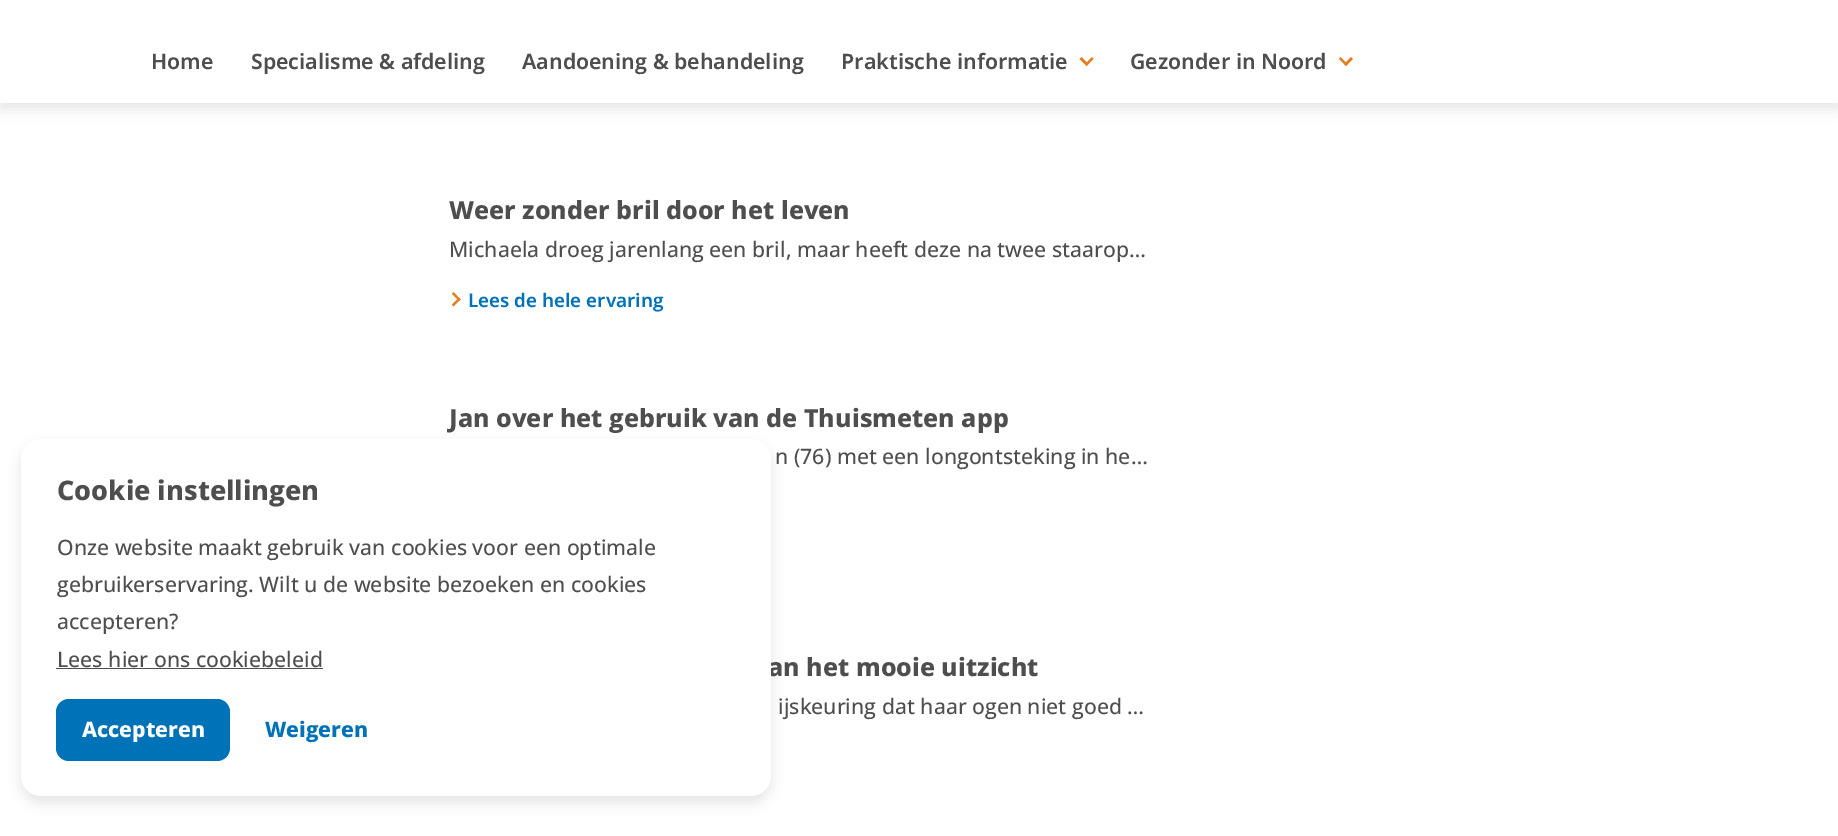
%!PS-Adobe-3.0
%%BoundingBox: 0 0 1838 836
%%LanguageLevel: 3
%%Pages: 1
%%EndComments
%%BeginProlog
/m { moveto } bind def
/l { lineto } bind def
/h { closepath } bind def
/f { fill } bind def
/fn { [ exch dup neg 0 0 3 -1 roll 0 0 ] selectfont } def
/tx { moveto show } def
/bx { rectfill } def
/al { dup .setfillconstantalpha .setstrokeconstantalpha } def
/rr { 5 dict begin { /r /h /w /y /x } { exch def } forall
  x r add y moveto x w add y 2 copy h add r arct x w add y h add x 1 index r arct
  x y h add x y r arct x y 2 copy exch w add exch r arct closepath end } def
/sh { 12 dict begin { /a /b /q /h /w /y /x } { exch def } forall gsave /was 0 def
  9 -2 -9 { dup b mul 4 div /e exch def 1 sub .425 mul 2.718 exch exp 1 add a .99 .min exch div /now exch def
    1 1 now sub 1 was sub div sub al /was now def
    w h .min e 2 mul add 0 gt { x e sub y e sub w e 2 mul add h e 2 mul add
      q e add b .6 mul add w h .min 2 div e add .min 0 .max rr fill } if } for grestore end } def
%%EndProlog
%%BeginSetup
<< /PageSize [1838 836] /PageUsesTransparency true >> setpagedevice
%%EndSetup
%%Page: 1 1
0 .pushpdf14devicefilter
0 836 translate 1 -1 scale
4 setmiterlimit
1 setgray
0 0 1838 836 bx
0 setgray
0 -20 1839 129 0 6.5 0.1 sh
1 setgray
0 0 1838 103 bx
/OpenSans-SemiBold 21.25 fn
0.306 setgray
(Home) 151 69 tx
(Specialisme & afdeling) 251 69 tx
(Aandoening & behandeling) 522 69 tx
(Praktische informatie) 841 69 tx
0.89 0.498 0.129 setrgbcolor
1093.5 59 m 1086.5 66 l 1085 64 l 1092 57 l h f
1088.5 64 m 1086.5 66 l 1079.5 59 l 1081.5 57 l h f
0.306 setgray
(Gezonder in Noord) 1130 69 tx
0.89 0.498 0.129 setrgbcolor
1353 59 m 1346 66 l 1344 64 l 1351 57 l h f
1347.5 64 m 1346 66 l 1339 59 l 1340.5 57 l h f
0 setgray
21 445 750 358 20 6.5 0.1 sh
/OpenSans-Bold 25 fn
0.306 setgray
(an het mooie uitzicht) 768 676 tx
1 setgray
21 439 750 357 20 rr f
/OpenSans-Bold 27 fn
0.306 setgray
(Cookie instellingen) 57 500 tx
/OpenSans-Medium 21.25 fn
(Onze website maakt gebruik van cookies voor een optimale) 57 555 tx
(gebruikerservaring. Wilt u de website bezoeken en cookies) 57 592 tx
(accepteren?) 57 629 tx
(Lees hier ons cookiebeleid) 57 667 tx
56 668 267 1 bx
0 0.451 0.722 setrgbcolor
56 699 174 62 13 rr f
/OpenSans-Bold 21.25 fn
1 setgray
(Accepteren) 82 737 tx
0 0.451 0.722 setrgbcolor
(Weigeren) 265 737 tx
/OpenSans-Bold 25 fn
0.306 setgray
(Weer zonder bril door het leven) 449 219 tx
/OpenSans-Medium 21.25 fn
(Michaela droeg jarenlang een bril, maar heeft deze na twee staarop…) 449 257 tx
0.89 0.498 0.129 setrgbcolor
453.5 292 m 460.5 299.5 l 459 301 l 452 294 l h f
459 297.5 m 460.5 299.5 l 453.5 306.5 l 452 304.5 l h f
/OpenSans-SemiBold 18.75 fn
0 0.451 0.722 setrgbcolor
(Lees de hele ervaring) 468 307 tx
/OpenSans-Bold 25 fn
0.306 setgray
(Jan over het gebruik van de Thuismeten app) 449 427 tx
/OpenSans-Medium 21.25 fn
(n \(76\) met een longontsteking in he…) 775 464 tx
(ijskeuring dat haar ogen niet goed …) 778 714 tx
.poppdf14devicefilter showpage
%%EOF
